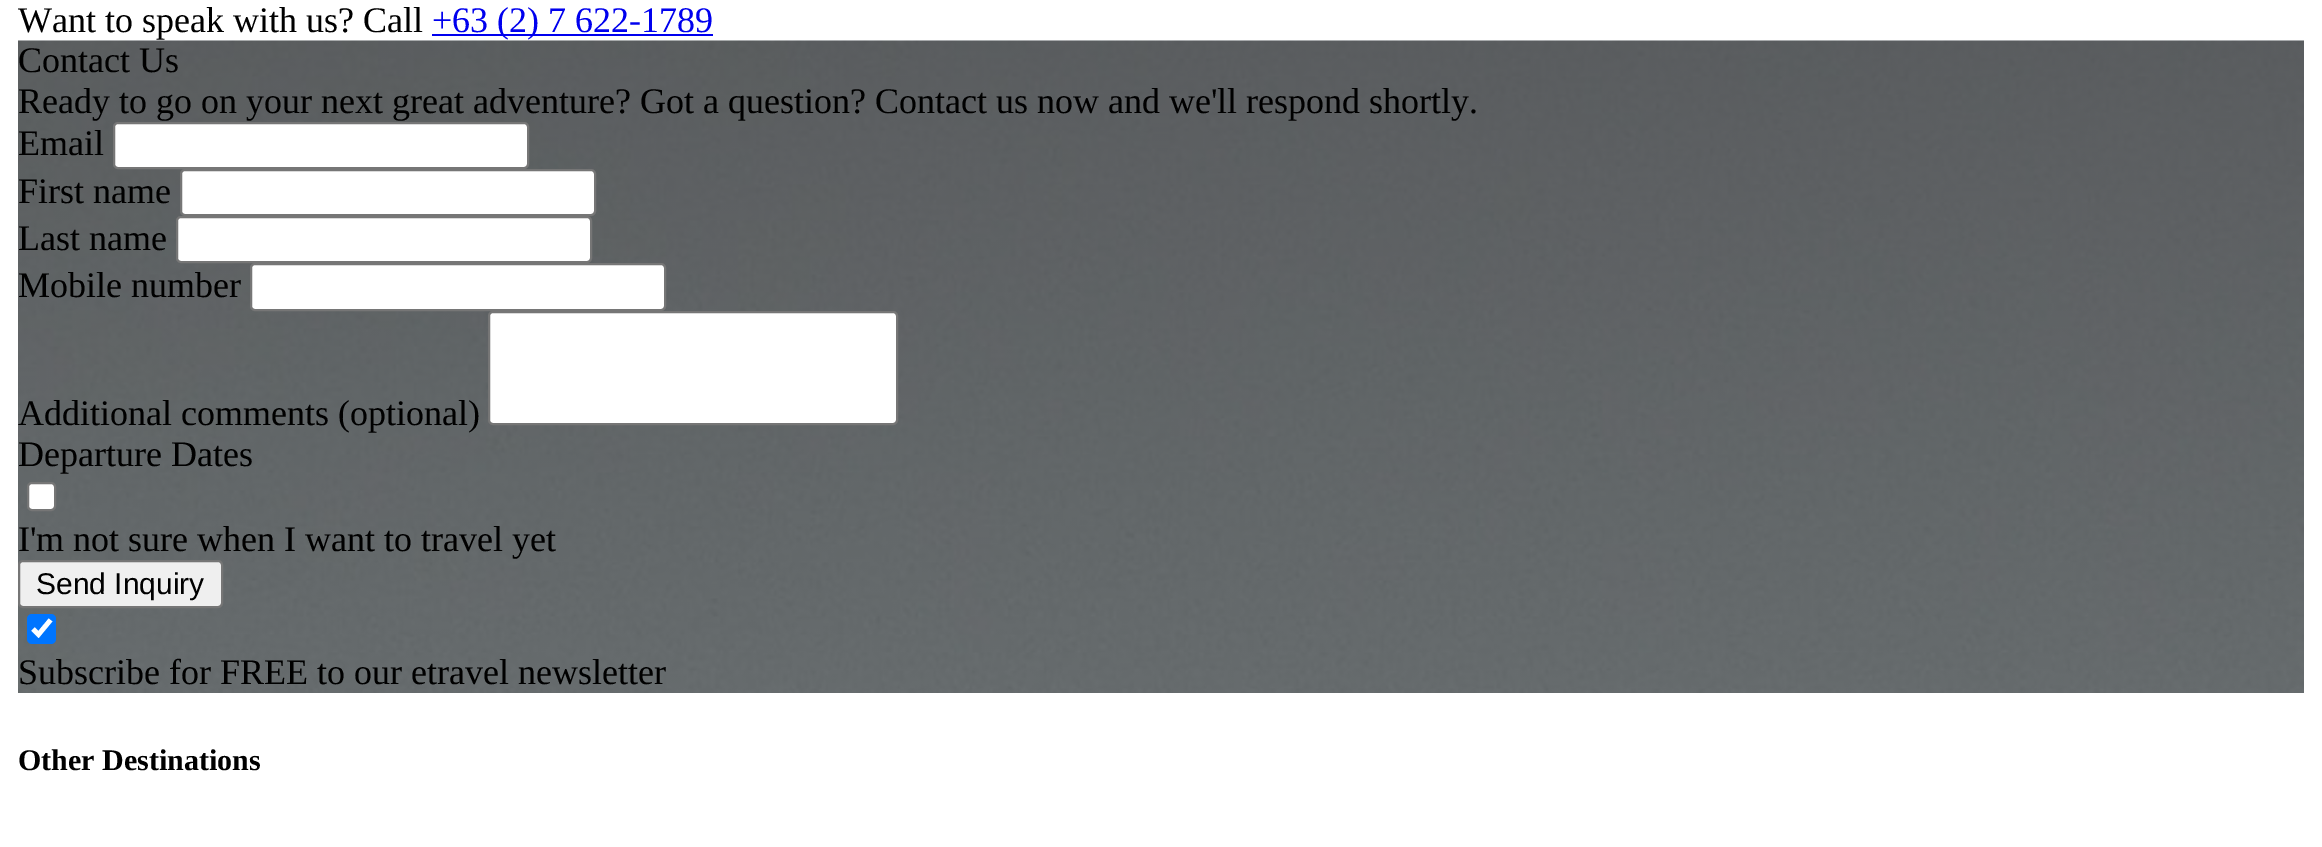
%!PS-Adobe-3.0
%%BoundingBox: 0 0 2322 847
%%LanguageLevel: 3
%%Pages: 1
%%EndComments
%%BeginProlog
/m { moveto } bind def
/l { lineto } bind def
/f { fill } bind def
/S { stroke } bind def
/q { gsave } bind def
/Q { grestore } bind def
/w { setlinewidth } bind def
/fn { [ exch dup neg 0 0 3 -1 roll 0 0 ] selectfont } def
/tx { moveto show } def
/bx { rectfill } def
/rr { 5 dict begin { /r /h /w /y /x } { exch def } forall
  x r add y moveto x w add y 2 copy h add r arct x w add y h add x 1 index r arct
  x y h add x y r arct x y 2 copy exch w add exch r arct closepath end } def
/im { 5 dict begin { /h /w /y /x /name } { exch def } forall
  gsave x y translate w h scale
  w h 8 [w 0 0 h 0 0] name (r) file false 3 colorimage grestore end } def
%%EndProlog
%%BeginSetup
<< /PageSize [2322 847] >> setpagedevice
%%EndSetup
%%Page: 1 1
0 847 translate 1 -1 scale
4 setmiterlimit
1 setgray
0 0 2322 847 bx
/LiberationSerif-Regular 36 fn
0 setgray
(Want to speak with us? Call) 18 32 tx
0 0 0.933 setrgbcolor
432 34 281 2 bx
(+63 \(2\) 7 622-1789) 432 32 tx
(image0.raw) 18 40 2286 653 im
0 setgray
(Contact Us) 18 72 tx
(Ready to go on your next great adventure? Got a question? Contact us now and we'll respond shortly.) 18 113 tx
(Email) 18 155 tx
1 setgray
114 123 414 45 4 rr q f Q
0.463 setgray
2 w
S
0 setgray
(First name) 18 203 tx
1 setgray
181 170 414 45 4 rr q f Q
0.463 setgray
S
0 setgray
(Last name) 18 250 tx
1 setgray
177 217 414 45 4 rr q f Q
0.463 setgray
S
0 setgray
(Mobile number) 18 297 tx
1 setgray
251 264 414 46 4 rr q f Q
0.463 setgray
S
0 setgray
(Additional comments \(optional\)) 18 425 tx
1 setgray
489 312 408 112 4 rr q f Q
0.463 setgray
S
0 setgray
(Departure Dates) 18 466 tx
1 setgray
28 483 27 27 4 rr q f Q
0.463 setgray
S
0 setgray
(I'm not sure when I want to travel yet) 18 551 tx
0.937 setgray
19 561 203 46 4 rr q f Q
0.463 setgray
S
/LiberationSans-Regular 30 fn
0 setgray
(Send Inquiry) 36 594 tx
0 0.459 1 setrgbcolor
27 614 29 30 5 rr f
1 setgray
4.7 w
33 629 m 38.5 634.5 l 50.5 620 l S
/LiberationSerif-Regular 36 fn
0 setgray
(Subscribe for FREE to our etravel newsletter) 18 684 tx
/LiberationSerif-Bold 30 fn
(Other Destinations) 18 770 tx
showpage
%%EOF
